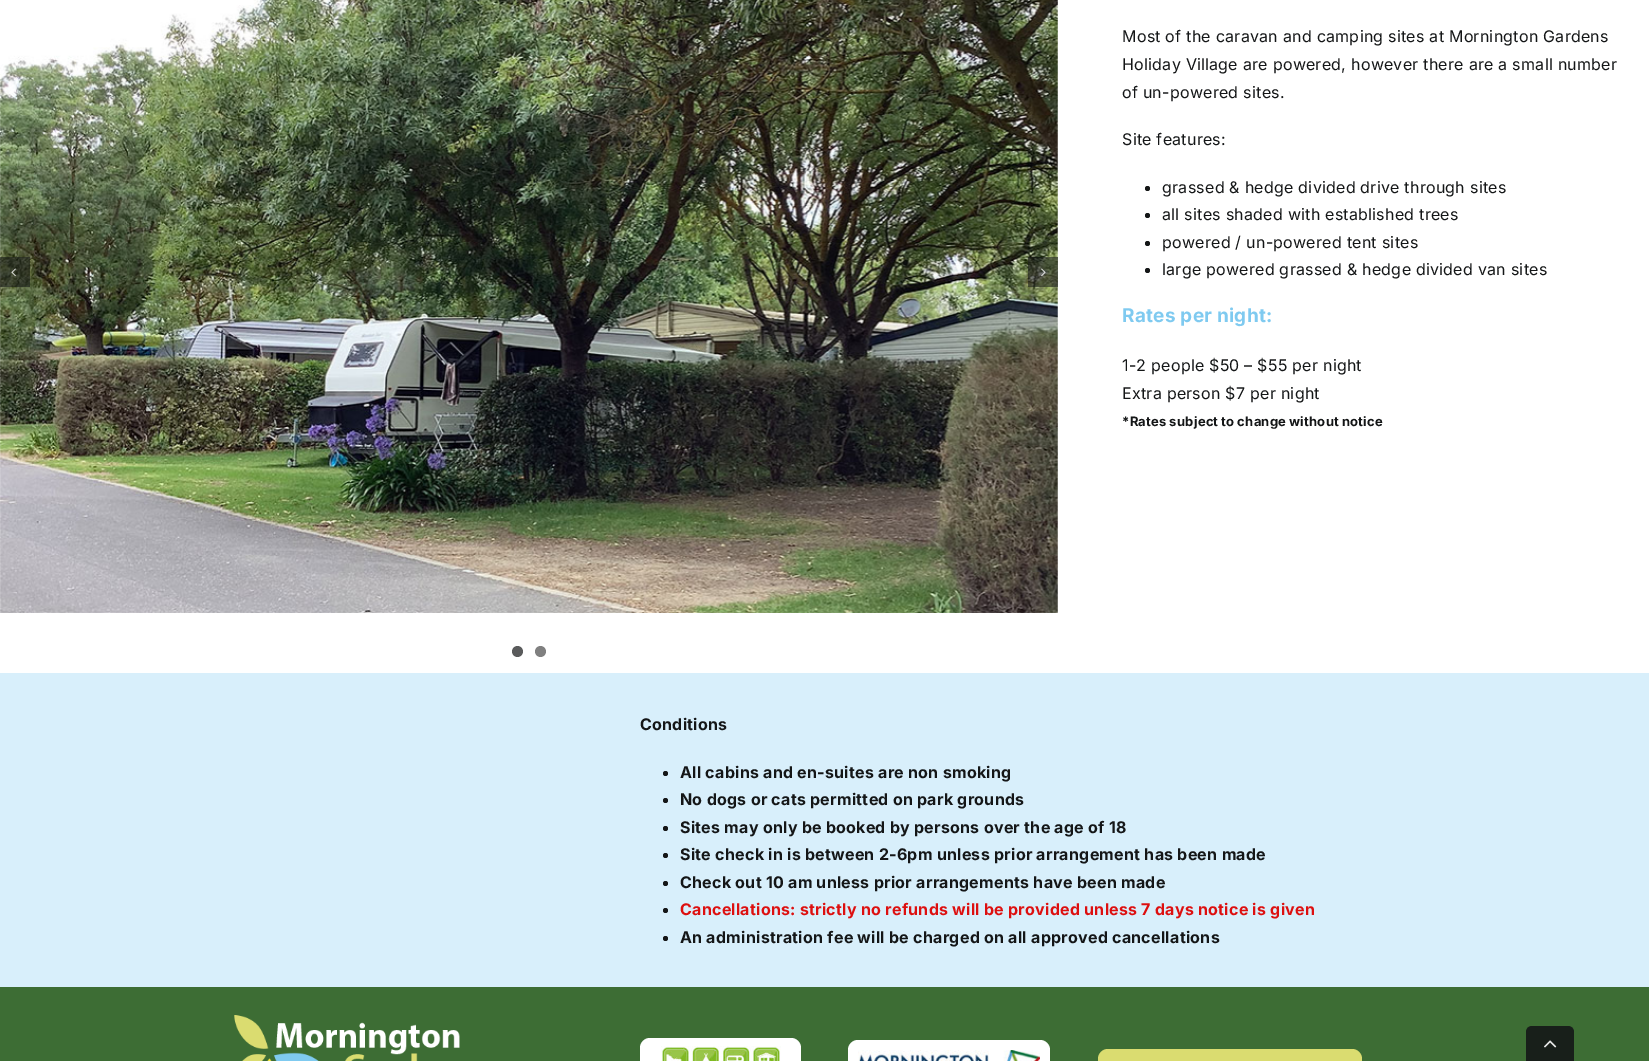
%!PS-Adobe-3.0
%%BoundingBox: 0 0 1649 1061
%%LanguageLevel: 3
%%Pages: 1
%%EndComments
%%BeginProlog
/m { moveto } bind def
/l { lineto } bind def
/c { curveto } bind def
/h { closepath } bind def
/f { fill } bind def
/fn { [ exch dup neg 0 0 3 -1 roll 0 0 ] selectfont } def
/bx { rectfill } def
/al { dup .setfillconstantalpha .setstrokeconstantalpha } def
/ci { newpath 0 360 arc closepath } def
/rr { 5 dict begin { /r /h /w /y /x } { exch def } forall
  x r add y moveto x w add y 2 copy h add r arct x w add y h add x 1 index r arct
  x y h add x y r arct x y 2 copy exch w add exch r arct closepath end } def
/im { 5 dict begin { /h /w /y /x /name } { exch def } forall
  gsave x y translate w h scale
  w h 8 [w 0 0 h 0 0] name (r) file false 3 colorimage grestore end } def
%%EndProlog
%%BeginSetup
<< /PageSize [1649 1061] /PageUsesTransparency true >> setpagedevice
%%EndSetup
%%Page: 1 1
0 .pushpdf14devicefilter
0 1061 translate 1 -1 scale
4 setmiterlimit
1 setgray
0 0 1649 1061 bx
(image0.raw) 0 0 1058 613 im
0.56 al
0.075 0.082 0.086 setrgbcolor
0 257 30 30 bx
1 al
(image1.raw) 11 268 5 9 im
0.56 al
1028 257 30 30 bx
1 al
(image2.raw) 1041 268 5 9 im
0.353 0.357 0.361 setrgbcolor
517.5 651.5 5.5 ci f
0.502 setgray
540.5 651.5 5.5 ci f
/Inter-Regular 16 fn
0.078 0.086 0.09 setrgbcolor
1122 42 m 0.25 0 (Most of the caravan and camping sites at Mornington Gardens) ashow
1122 70 m 0.25 0 (Holiday Village are powered, however there are a small number) ashow
1122 98 m 0.25 0 (of un-powered sites.) ashow
1122 145 m 0.25 0 (Site features:) ashow
1147.5 188.5 2.5 ci f
1162 193 m 0.25 0 (grassed & hedge divided drive through sites) ashow
1147.5 215.5 2.5 ci f
1162 220 m 0.25 0 (all sites shaded with established trees) ashow
1147.5 243.5 2.5 ci f
1162 248 m 0.25 0 (powered / un-powered tent sites) ashow
1147.5 270.5 2.5 ci f
1162 275 m 0.25 0 (large powered grassed & hedge divided van sites) ashow
/Inter-Bold 19 fn
0.498 0.792 0.941 setrgbcolor
1122 322 m 0.25 0 (Rates per night:) ashow
/Inter-Regular 16 fn
0.078 0.086 0.09 setrgbcolor
1122 371 m 0.25 0 (1-2 people $50 – $55 per night) ashow
1122 399 m 0.25 0 (Extra person $7 per night) ashow
/Inter-Bold 13 fn
1122 426 m -0.5 0 32 0.25 0 (*Rates subject to change without notice) awidthshow
0.847 0.937 0.984 setrgbcolor
0 673 1649 314 bx
/Inter-Bold 16 fn
0.078 0.086 0.09 setrgbcolor
640 730 m 0.25 0 (Conditions) ashow
665.5 773.5 2.5 ci f
680 778 m 0.25 0 (All cabins and en-suites are non smoking) ashow
665.5 800.5 2.5 ci f
680 805 m 0.25 0 (No dogs or cats permitted on park grounds) ashow
665.5 828.5 2.5 ci f
680 833 m 0.25 0 (Sites may only be booked by persons over the age of 18) ashow
665.5 855.5 2.5 ci f
680 860 m 0.25 0 (Site check in is between 2-6pm unless prior arrangement has been made) ashow
665.5 883.5 2.5 ci f
680 888 m 0.25 0 (Check out 10 am unless prior arrangements have been made) ashow
665.5 910.5 2.5 ci f
0.867 0.059 0.059 setrgbcolor
680 915 m 0.25 0 (Cancellations: strictly no refunds will be provided unless 7 days notice is given) ashow
0.078 0.086 0.09 setrgbcolor
665.5 938.5 2.5 ci f
680 943 m 0.25 0 (An administration fee will be charged on all approved cancellations) ashow
0.239 0.427 0.204 setrgbcolor
0 987 1649 74 bx
(image3.raw) 234 1015 226 46 im
1 setgray
640 1038 161 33 10 rr f
(image4.raw) 661 1046 120 15 im
848 1040 202 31 10 rr f
(image5.raw) 858 1050 182 11 im
0.855 0.863 0.439 setrgbcolor
1098 1049 264 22 10 rr f
0.094 0.122 0.102 setrgbcolor
1532 1026 m 1568 1026 l 1571.5 1026 1574 1028.5 1574 1032 c 1574 1061 l 1526 1061 l 1526 1032 l 1526 1028.5 1528.5 1026 1532 1026 c h f
(image6.raw) 1544 1040 13 8 im
.poppdf14devicefilter showpage
%%EOF
